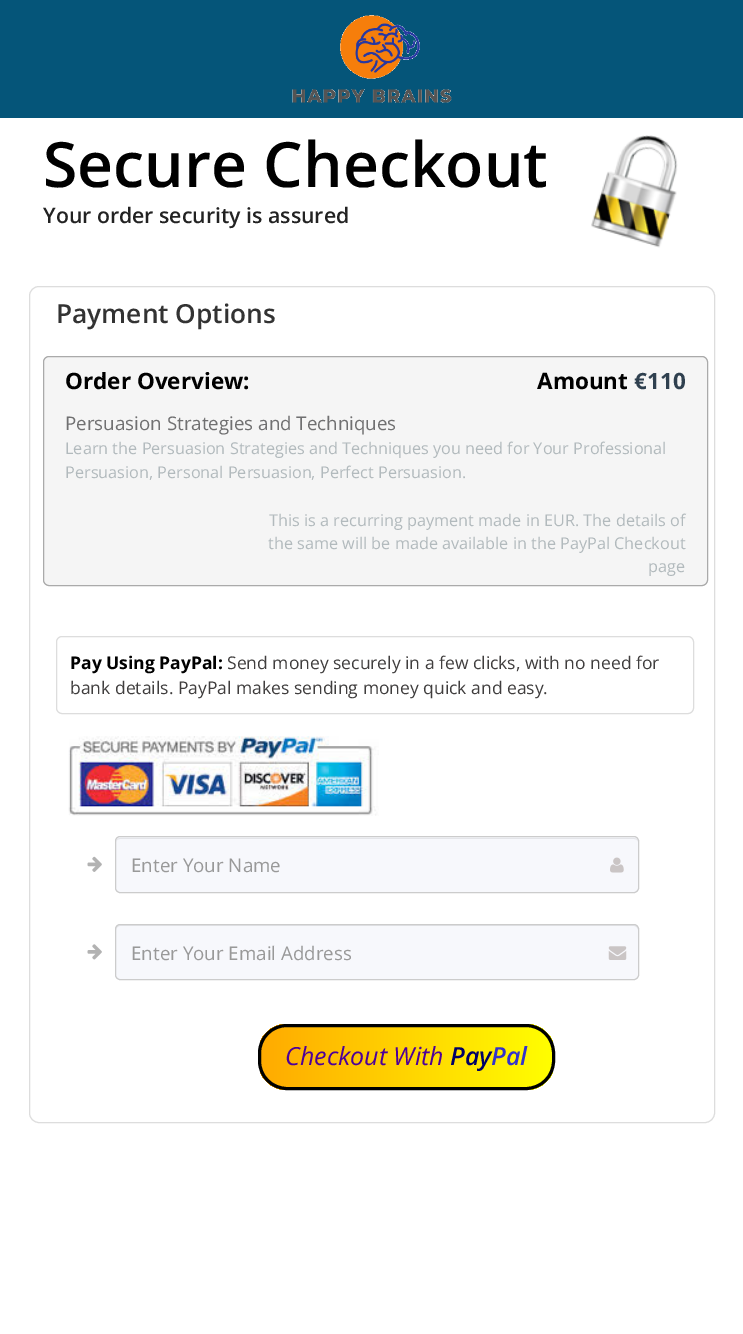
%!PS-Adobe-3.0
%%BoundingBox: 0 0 743 1334
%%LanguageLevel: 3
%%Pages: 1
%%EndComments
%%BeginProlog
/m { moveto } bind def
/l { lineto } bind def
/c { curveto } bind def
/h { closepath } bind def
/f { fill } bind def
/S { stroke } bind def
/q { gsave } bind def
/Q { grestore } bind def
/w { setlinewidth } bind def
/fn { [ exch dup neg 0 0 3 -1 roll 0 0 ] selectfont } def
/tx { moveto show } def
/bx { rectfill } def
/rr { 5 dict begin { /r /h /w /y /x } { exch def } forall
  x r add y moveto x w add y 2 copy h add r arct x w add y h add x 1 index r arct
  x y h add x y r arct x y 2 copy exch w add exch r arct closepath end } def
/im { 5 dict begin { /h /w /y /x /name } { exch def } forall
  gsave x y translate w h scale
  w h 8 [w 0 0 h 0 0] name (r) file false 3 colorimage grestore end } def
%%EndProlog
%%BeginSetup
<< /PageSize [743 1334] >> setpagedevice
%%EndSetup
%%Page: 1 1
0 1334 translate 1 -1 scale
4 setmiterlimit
1 setgray
0 0 743 1334 bx
0.02 0.333 0.475 setrgbcolor
0 0 743 118 bx
(image0.raw) 292 15 160 88 im
/OpenSans-SemiBold 62.5 fn
0 setgray
(Secure Checkout) 43 187 tx
/OpenSans-SemiBold 21.25 fn
0.133 setgray
(Your order security is assured) 43 223 tx
(image1.raw) 591 135 87 113 im
0.867 setgray
29.5 286.5 685 836 9.5 rr S
/OpenSans-SemiBold 26.25 fn
0.2 setgray
(Payment Options) 56 323 tx
0.961 setgray
43.5 356.5 664 229 5.5 rr q f Q
0.667 setgray
S
/OpenSans-Bold 22.5 fn
0 setgray
(Order Overview:) 65 389 tx
(Amount) 537 389 tx
0.184 0.251 0.31 setrgbcolor
(€110) 634 389 tx
/OpenSans-Regular 18.75 fn
0.439 0.439 0.443 setrgbcolor
(Persuasion Strategies and Techniques) 65 430 tx
/OpenSans-Regular 16.25 fn
0.698 0.729 0.741 setrgbcolor
(Learn the Persuasion Strategies and Techniques you need for Your Professional) 65 454 tx
(Persuasion, Personal Persuasion, Perfect Persuasion.) 65 478 tx
(This is a recurring payment made in EUR. The details of) 269 526 tx
(the same will be made available in the PayPal Checkout) 268 549 tx
(page) 648 572 tx
0.867 setgray
56.5 636.5 637 77 5.5 rr S
/OpenSans-Bold 17.5 fn
0 setgray
(Pay Using PayPal:) 70 669 tx
/OpenSans-Regular 17.5 fn
0.251 0.243 0.243 setrgbcolor
(Send money securely in a few clicks, with no need for) 227 669 tx
(bank details. PayPal makes sending money quick and easy.) 70 694 tx
(image2.raw) 68 736 311 80 im
(image3.raw) 87 856 15 16 im
0.969 0.973 0.988 setrgbcolor
115 836 524 57 5 rr f
0.894 0.898 0.914 setrgbcolor
120 839 m 634 839 l 636 839 638 840 638 842 c 638 840 636 838 634 838 c 120 838 l 118 838 116 840 116 842 c 116 840 118 839 120 839 c h f
0.8 setgray
115.5 836.5 523 56 4.5 rr S
/OpenSans-Regular 18.75 fn
0.6 setgray
(Enter Your Name) 131 872 tx
(image4.raw) 610 857 14 16 im
(image5.raw) 87 944 15 16 im
0.969 0.973 0.988 setrgbcolor
115 924 524 56 5 rr f
0.894 0.898 0.914 setrgbcolor
120 926 m 634 926 l 636 926 638 928 638 930 c 638 929 l 638 927 636 925 634 925 c 120 925 l 118 925 116 927 116 929 c 116 930 l 116 928 118 926 120 926 c h f
0.8 setgray
115.5 924.5 523 55 4.5 rr S
0.6 setgray
(Enter Your Email Address) 131 960 tx
(image6.raw) 608 946 19 14 im
q
258 1024 297 66 29 rr clip newpath
q 260 1024 m 553 1024 l 553 1090 l 260 1090 l h clip newpath
<< /ShadingType 2 /ColorSpace /DeviceRGB /Coords [260 1057 553 1057] /Extend [true true] /Function << /FunctionType 2 /Domain [0 1] /C0 [1 0.667 0] /C1 [1 1 0] /N 1 >> >> shfill Q
Q
0 setgray
3 w
259.5 1025.5 294 63 27.5 rr S
/OpenSans-Italic 25 fn
0.302 0 0.6 setrgbcolor
(Checkout With) 285 1065 tx
/OpenSans-SemiBoldItalic 25 fn
0 0 0.4 setrgbcolor
(Pay) 450 1065 tx
0.2 0.2 0.8 setrgbcolor
(Pal) 491 1065 tx
showpage
%%EOF
